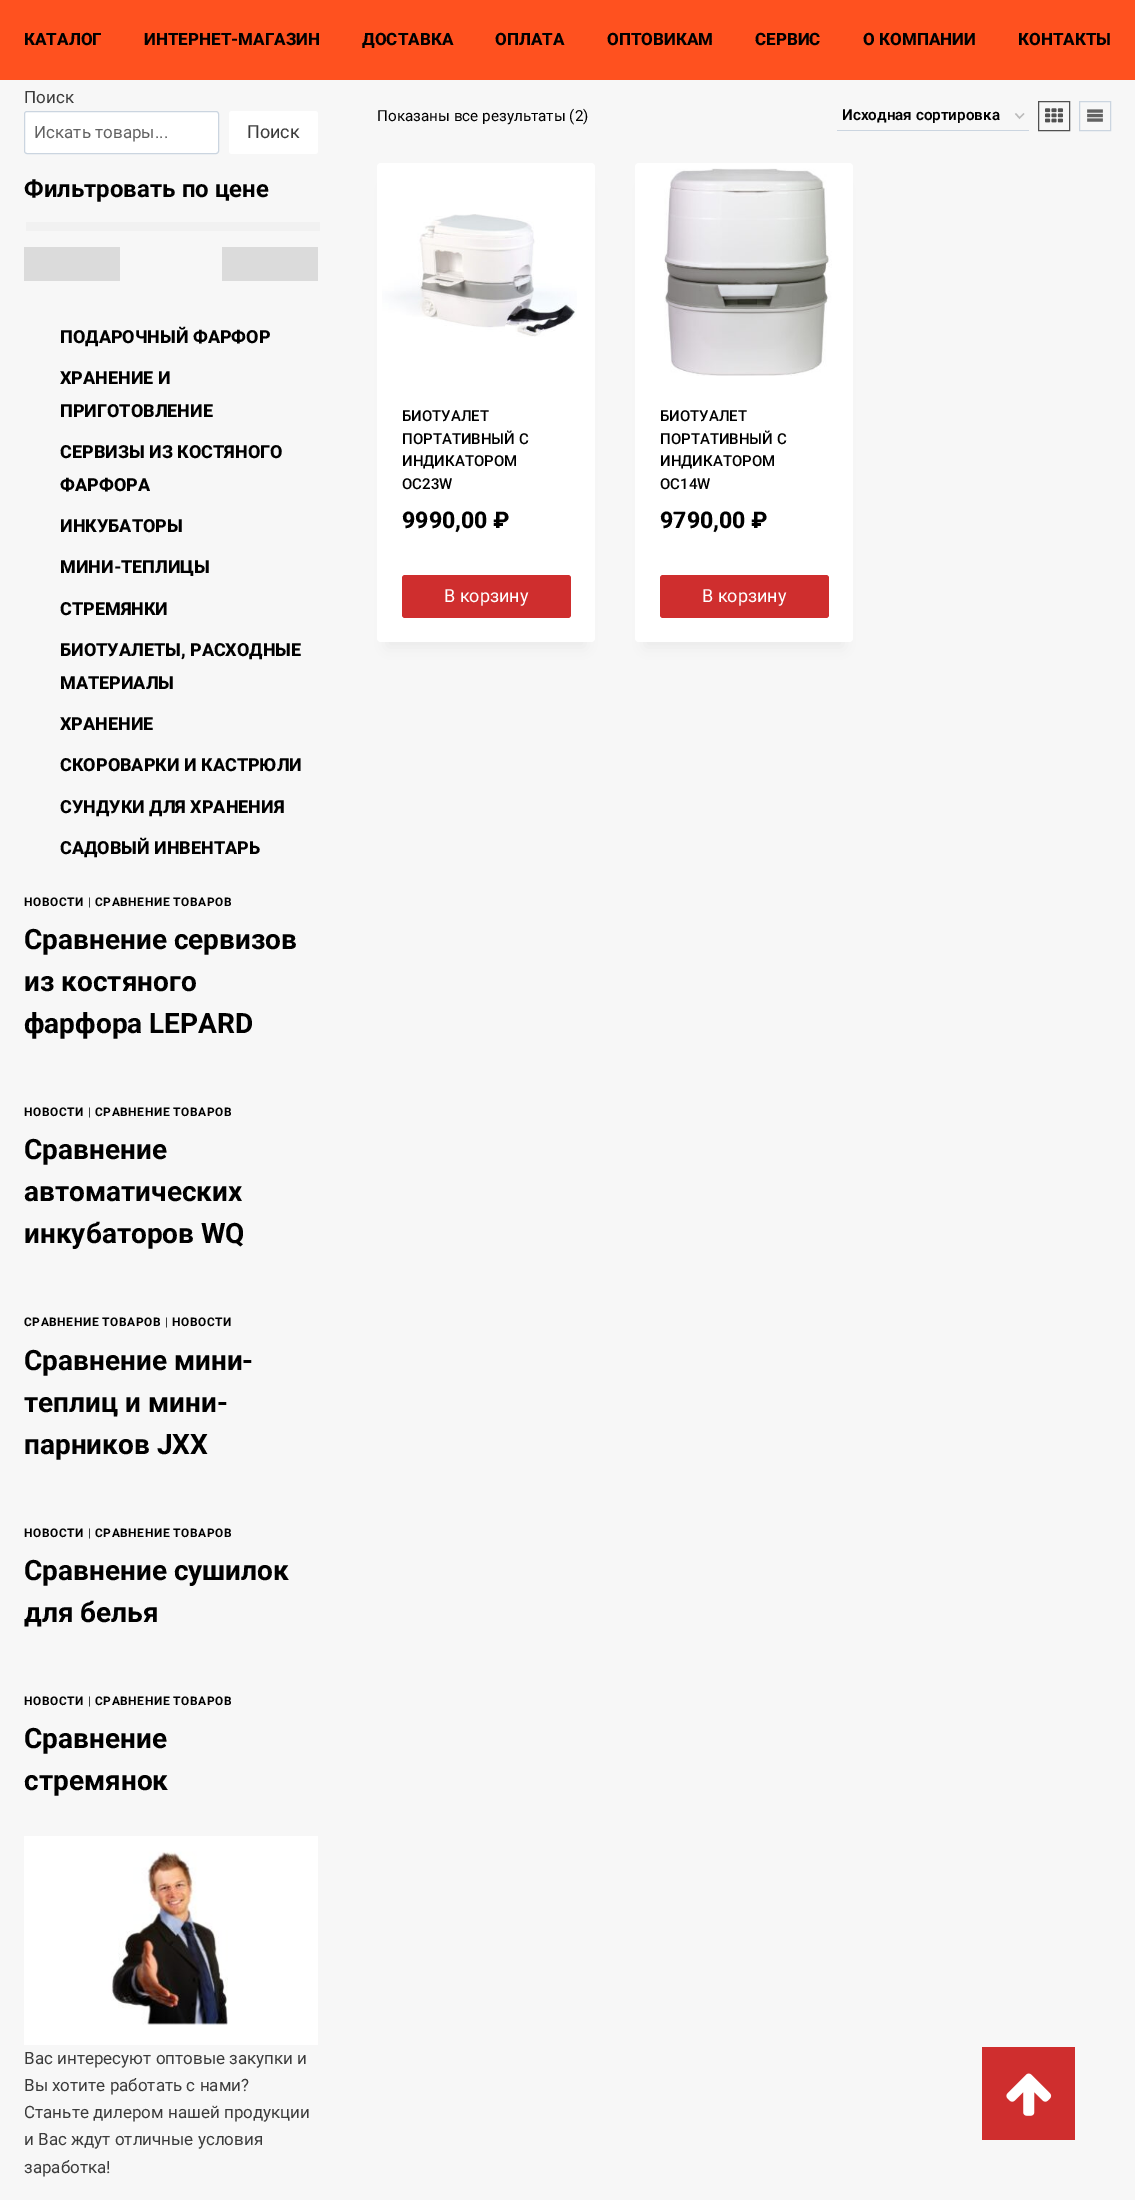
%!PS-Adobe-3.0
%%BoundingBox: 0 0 1135 2200
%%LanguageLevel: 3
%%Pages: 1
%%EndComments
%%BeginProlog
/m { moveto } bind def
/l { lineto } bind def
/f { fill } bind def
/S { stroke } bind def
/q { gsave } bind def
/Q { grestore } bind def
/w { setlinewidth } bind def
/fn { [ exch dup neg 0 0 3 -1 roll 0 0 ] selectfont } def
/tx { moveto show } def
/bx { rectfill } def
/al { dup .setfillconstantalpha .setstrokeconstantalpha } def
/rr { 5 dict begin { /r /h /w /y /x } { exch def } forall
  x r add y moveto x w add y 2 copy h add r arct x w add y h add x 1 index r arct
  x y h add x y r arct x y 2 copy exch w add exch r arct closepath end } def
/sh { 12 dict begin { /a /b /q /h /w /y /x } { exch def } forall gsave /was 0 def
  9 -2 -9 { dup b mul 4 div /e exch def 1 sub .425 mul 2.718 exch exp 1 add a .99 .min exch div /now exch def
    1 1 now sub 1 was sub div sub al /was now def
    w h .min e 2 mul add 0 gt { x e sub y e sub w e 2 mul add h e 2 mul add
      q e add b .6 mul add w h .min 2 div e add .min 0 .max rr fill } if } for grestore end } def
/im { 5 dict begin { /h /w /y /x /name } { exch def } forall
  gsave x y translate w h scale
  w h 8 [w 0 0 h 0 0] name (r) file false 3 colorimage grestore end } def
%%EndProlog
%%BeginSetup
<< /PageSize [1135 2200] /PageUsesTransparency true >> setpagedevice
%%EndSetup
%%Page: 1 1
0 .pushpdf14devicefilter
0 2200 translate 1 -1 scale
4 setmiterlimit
0.969 setgray
0 0 1135 2200 bx
1 0.318 0.122 setrgbcolor
0 0 1135 80 bx
/Roboto-ExtraBold 17 fn
0 setgray
(КАТАЛОГ) 24 45 tx
(ИНТЕРНЕТ-МАГАЗИН) 144 45 tx
(ДОСТАВКА) 362 45 tx
(ОПЛАТА) 495 45 tx
(ОПТОВИКАМ) 607 45 tx
(СЕРВИС) 755 45 tx
(О КОМПАНИИ) 863 45 tx
(КОНТАКТЫ) 1018 45 tx
/Roboto-Regular 17 fn
0.231 setgray
(Поиск) 24 103 tx
1 setgray
24.5 111.5 194 42 2.5 rr q f Q
0.796 0.835 0.878 setrgbcolor
S
0.384 setgray
(Искать товары...) 34 138 tx
1 setgray
229 111 89 43 3 rr f
/Roboto-Regular 18 fn
0.231 setgray
(Поиск) 247 138 tx
/Roboto-Bold 24 fn
0 setgray
(Фильтровать по цене) 24 197 tx
0.945 setgray
26 222 294 9 bx
0.859 setgray
24 247 96 34 bx
222 247 96 34 bx
/Roboto-ExtraBold 18 fn
0 setgray
(ПОДАРОЧНЫЙ ФАРФОР) 60 343 tx
(ХРАНЕНИЕ И) 60 384 tx
(ПРИГОТОВЛЕНИЕ) 60 417 tx
(СЕРВИЗЫ ИЗ КОСТЯНОГО) 60 458 tx
(ФАРФОРА) 60 491 tx
(ИНКУБАТОРЫ) 60 532 tx
(МИНИ-ТЕПЛИЦЫ) 60 573 tx
(СТРЕМЯНКИ) 60 615 tx
(БИОТУАЛЕТЫ, РАСХОДНЫЕ) 60 656 tx
(МАТЕРИАЛЫ) 60 689 tx
(ХРАНЕНИЕ) 60 730 tx
(CКОРОВАРКИ И КАСТРЮЛИ) 60 771 tx
(СУНДУКИ ДЛЯ ХРАНЕНИЯ) 60 813 tx
(САДОВЫЙ ИНВЕНТАРЬ) 60 854 tx
/Roboto-Bold 11.9 fn
24 906 m 0.6 0 (НОВОСТИ) ashow
/Roboto-Regular 11.9 fn
0.231 setgray
88 906 m 0.6 0 (|) ashow
/Roboto-Bold 11.9 fn
0 setgray
95 906 m 0.6 0 (СРАВНЕНИЕ ТОВАРОВ) ashow
/Roboto-Bold 28 fn
(Сравнение сервизов) 24 949 tx
(из костяного) 24 991 tx
(фарфора LEPARD) 24 1033 tx
/Roboto-Bold 11.9 fn
24 1116 m 0.6 0 (НОВОСТИ) ashow
/Roboto-Regular 11.9 fn
0.231 setgray
88 1116 m 0.6 0 (|) ashow
/Roboto-Bold 11.9 fn
0 setgray
95 1116 m 0.6 0 (СРАВНЕНИЕ ТОВАРОВ) ashow
/Roboto-Bold 28 fn
(Сравнение) 24 1159 tx
(автоматических) 24 1201 tx
(инкубаторов WQ) 24 1243 tx
/Roboto-Bold 11.9 fn
24 1326 m 0.6 0 (СРАВНЕНИЕ ТОВАРОВ) ashow
/Roboto-Regular 11.9 fn
0.231 setgray
165 1326 m 0.6 0 (|) ashow
/Roboto-Bold 11.9 fn
0 setgray
172 1326 m 0.6 0 (НОВОСТИ) ashow
/Roboto-Bold 28 fn
(Сравнение мини-) 24 1370 tx
(теплиц и мини-) 24 1412 tx
(парников JXX) 24 1454 tx
/Roboto-Bold 11.9 fn
24 1537 m 0.6 0 (НОВОСТИ) ashow
/Roboto-Regular 11.9 fn
0.231 setgray
88 1537 m 0.6 0 (|) ashow
/Roboto-Bold 11.9 fn
0 setgray
95 1537 m 0.6 0 (СРАВНЕНИЕ ТОВАРОВ) ashow
/Roboto-Bold 28 fn
(Сравнение сушилок) 24 1580 tx
(для белья) 24 1622 tx
/Roboto-Bold 11.9 fn
24 1705 m 0.6 0 (НОВОСТИ) ashow
/Roboto-Regular 11.9 fn
0.231 setgray
88 1705 m 0.6 0 (|) ashow
/Roboto-Bold 11.9 fn
0 setgray
95 1705 m 0.6 0 (СРАВНЕНИЕ ТОВАРОВ) ashow
/Roboto-Bold 28 fn
(Сравнение) 24 1748 tx
(стремянок) 24 1790 tx
(image0.raw) 24 1836 294 209 im
/Roboto-Regular 17 fn
0.231 setgray
(Вас интересуют оптовые закупки и) 24 2064 tx
(Вы хотите работать с нами?) 24 2091 tx
(Станьте дилером нашей продукции) 24 2118 tx
(и Вас ждут отличные условия) 24 2145 tx
(заработка!) 24 2173 tx
/Roboto-Regular 15.25 fn
0 setgray
(Показаны все результаты \(2\)) 377 121 tx
0.733 setgray
1.4 w
1015.5 113.5 m 1019.5 118 l 1024 113.5 l S
0.796 0.835 0.878 setrgbcolor
837 130 192 1 bx
/Roboto-SemiBold 15.25 fn
0 setgray
(Исходная сортировка) 842 120 tx
0.318 setgray
1 w
1038.5 101.5 31 29 rectstroke
(image1.raw) 1045 108 18 15 im
0.796 0.835 0.878 setrgbcolor
1079.5 101.5 31 29 rectstroke
(image2.raw) 1087 109 16 13 im
0 setgray
387 188 198 459 0 7.5 0.05 sh
1 setgray
377 163 218 479 4 rr f
(image3.raw) 382 214 195 123 im
/Roboto-Medium 15 fn
0 setgray
(БИОТУАЛЕТ) 402 421 tx
(ПОРТАТИВНЫЙ С) 402 444 tx
(ИНДИКАТОРОМ) 402 466 tx
(OC23W) 402 489 tx
/Roboto-ExtraBold 23 fn
(9990,00 ₽) 402 528 tx
0.812 0.18 0.18 setrgbcolor
402 575 169 43 3 rr f
/Roboto-Regular 18 fn
1 setgray
(В корзину) 444 602 tx
0 setgray
645 188 198 459 0 7.5 0.05 sh
1 setgray
635 163 218 479 4 rr f
(image4.raw) 664 168 168 208 im
/Roboto-Medium 15 fn
0 setgray
(БИОТУАЛЕТ) 660 421 tx
(ПОРТАТИВНЫЙ С) 660 444 tx
(ИНДИКАТОРОМ) 660 466 tx
(OC14W) 660 489 tx
/Roboto-ExtraBold 23 fn
(9790,00 ₽) 660 528 tx
0.812 0.18 0.18 setrgbcolor
660 575 169 43 3 rr f
/Roboto-Regular 18 fn
1 setgray
(В корзину) 702 602 tx
0.812 0.18 0.18 setrgbcolor
982 2047 93 93 bx
(image5.raw) 1006 2073 46 43 im
.poppdf14devicefilter showpage
%%EOF
